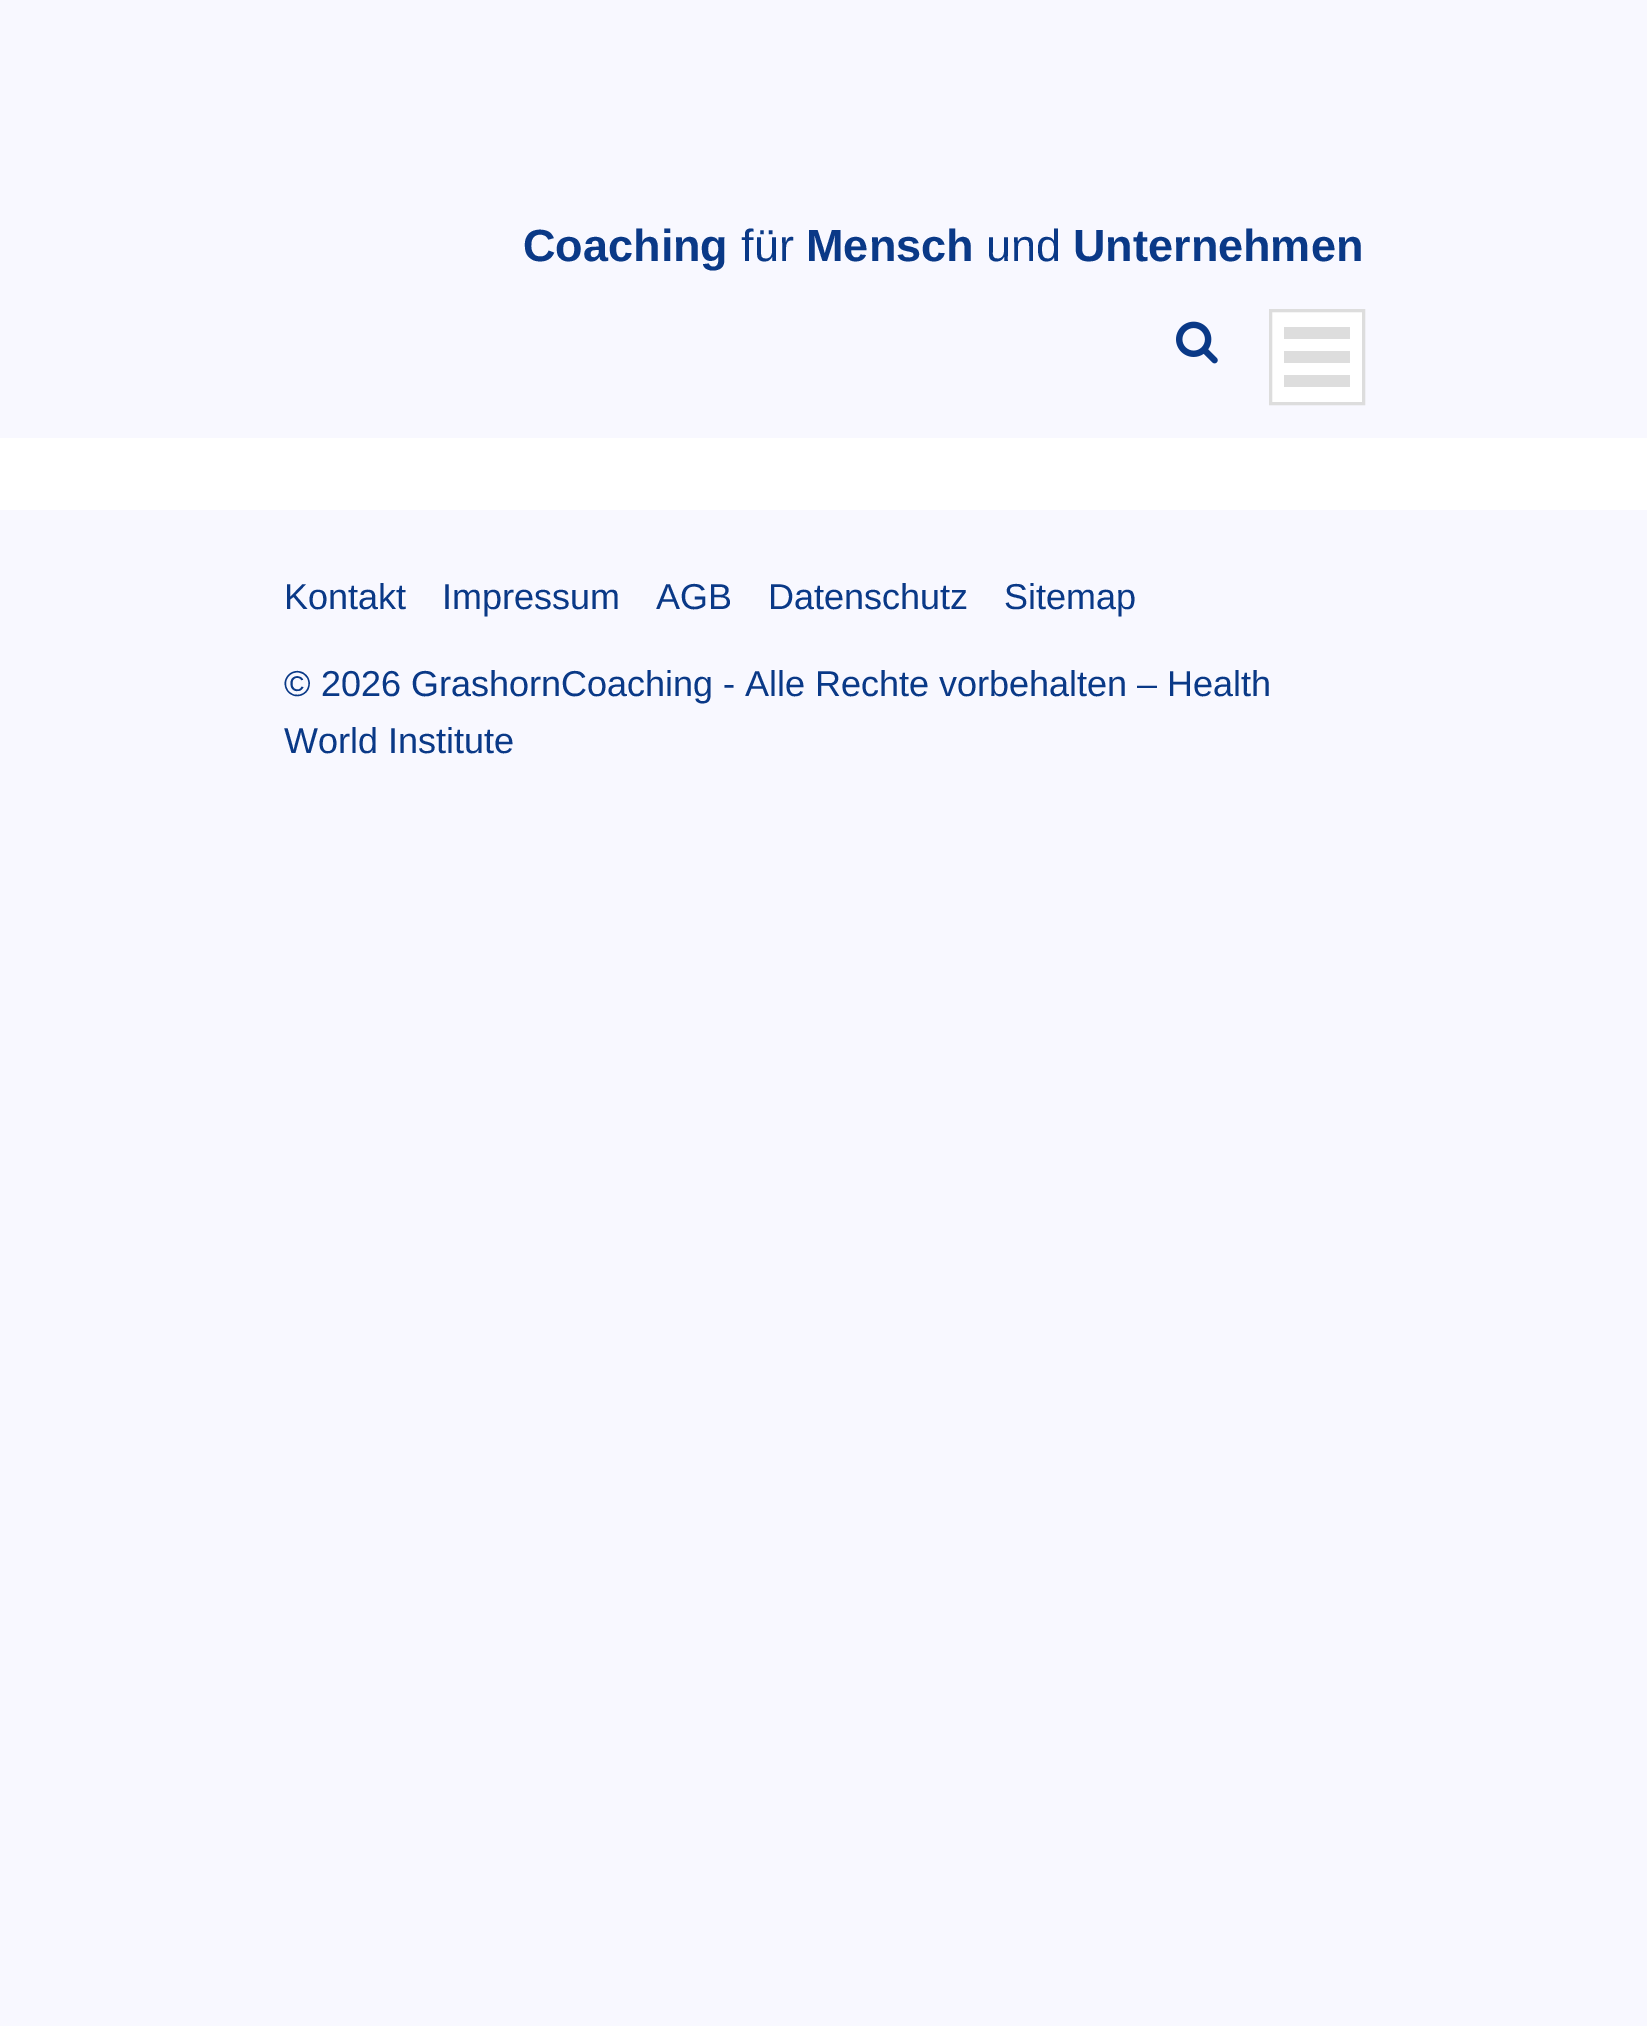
%!PS-Adobe-3.0
%%BoundingBox: 0 0 1647 2026
%%LanguageLevel: 3
%%Pages: 1
%%EndComments
%%BeginProlog
/m { moveto } bind def
/l { lineto } bind def
/h { closepath } bind def
/f { fill } bind def
/S { stroke } bind def
/q { gsave } bind def
/Q { grestore } bind def
/w { setlinewidth } bind def
/fn { [ exch dup neg 0 0 3 -1 roll 0 0 ] selectfont } def
/tx { moveto show } def
/bx { rectfill } def
/im { 5 dict begin { /h /w /y /x /name } { exch def } forall
  gsave x y translate w h scale
  w h 8 [w 0 0 h 0 0] name (r) file false 3 colorimage grestore end } def
%%EndProlog
%%BeginSetup
<< /PageSize [1647 2026] >> setpagedevice
%%EndSetup
%%Page: 1 1
0 2026 translate 1 -1 scale
4 setmiterlimit
0.973 0.973 1 setrgbcolor
0 0 1647 2026 bx
/LiberationSans-Bold 45 fn
0.039 0.224 0.529 setrgbcolor
(Coaching) 523 261 tx
/LiberationSans-Regular 45 fn
(für) 741 261 tx
/LiberationSans-Bold 45 fn
(Mensch) 806 261 tx
/LiberationSans-Regular 45 fn
(und) 986 261 tx
/LiberationSans-Bold 45 fn
(Unternehmen) 1073 261 tx
(image0.raw) 1176 321 42 43 im
1 setgray
1270.5 310.5 m 1363.5 310.5 l 1363.5 403.5 l 1270.5 403.5 l h q f Q
0.867 setgray
3 w
S
1284 327 66 12 bx
1284 351 66 12 bx
1284 375 66 12 bx
1 setgray
0 438 1647 72 bx
/LiberationSans-Regular 36 fn
0.039 0.224 0.529 setrgbcolor
(Kontakt) 284 609 tx
(Impressum) 442 609 tx
(AGB) 656 609 tx
(Datenschutz) 768 609 tx
(Sitemap) 1004 609 tx
(© 2026 GrashornCoaching - Alle Rechte vorbehalten – Health) 284 696 tx
(World Institute) 284 753 tx
showpage
%%EOF
